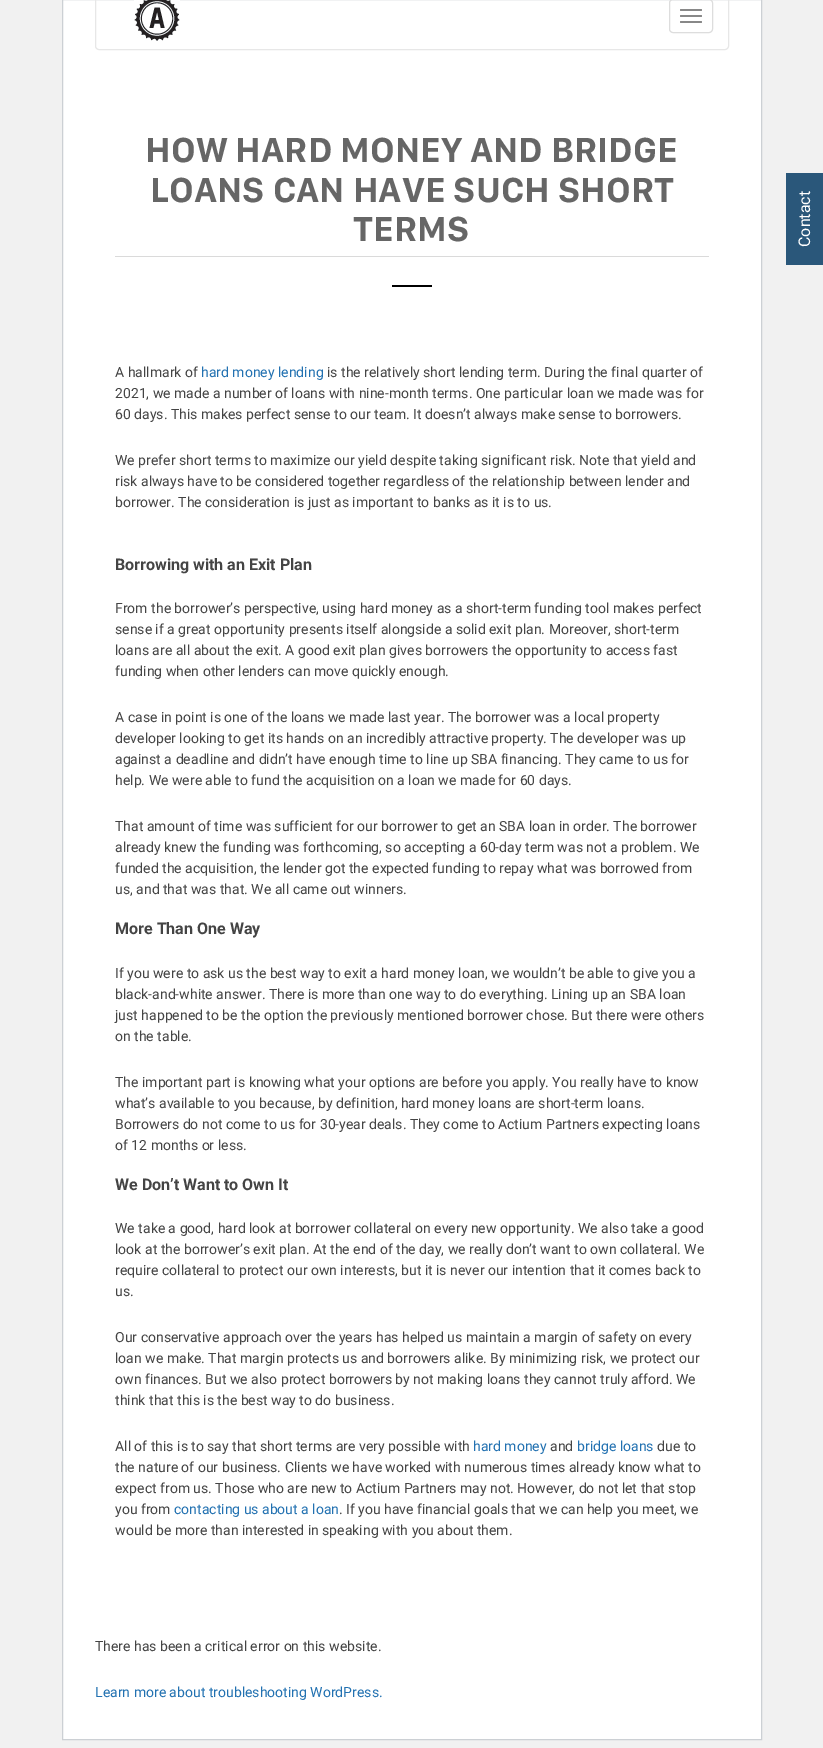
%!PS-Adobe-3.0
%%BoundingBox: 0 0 823 1748
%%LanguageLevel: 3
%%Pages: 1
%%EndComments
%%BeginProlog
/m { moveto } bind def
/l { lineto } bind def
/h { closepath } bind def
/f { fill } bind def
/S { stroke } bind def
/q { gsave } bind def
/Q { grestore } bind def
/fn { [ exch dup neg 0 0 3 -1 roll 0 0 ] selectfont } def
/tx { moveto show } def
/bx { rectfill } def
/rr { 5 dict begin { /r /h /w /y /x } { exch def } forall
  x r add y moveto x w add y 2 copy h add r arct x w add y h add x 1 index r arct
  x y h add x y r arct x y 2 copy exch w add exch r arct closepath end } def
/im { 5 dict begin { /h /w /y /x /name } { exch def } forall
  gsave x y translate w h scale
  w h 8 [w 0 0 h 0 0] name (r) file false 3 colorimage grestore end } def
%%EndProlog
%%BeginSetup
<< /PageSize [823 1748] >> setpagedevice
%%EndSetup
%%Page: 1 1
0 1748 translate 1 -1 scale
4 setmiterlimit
0.945 setgray
0 0 823 1748 bx
1 setgray
62.5 -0.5 m 761.5 -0.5 l 761.5 1739.5 l 62.5 1739.5 l h q f Q
0.8 0.816 0.831 setrgbcolor
S
0.906 setgray
95.5 -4.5 633 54 3.5 rr S
(image0.raw) 134 0 46 41 im
0.867 setgray
669.5 -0.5 43 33 3.5 rr S
0.533 setgray
680 9 22 2 1 rr f
680 15 22 2 1 rr f
680 21 22 2 1 rr f
0.855 setgray
115 256 594 1 bx
/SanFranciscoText-Bold 36 fn
0.4 setgray
(HOW HARD MONEY AND BRIDGE) 145 162 tx
(LOANS CAN HAVE SUCH SHORT) 150 202 tx
(TERMS) 353 241 tx
0 setgray
392 285 40 2 bx
/Roboto-Regular 14 fn
0.267 setgray
(A hallmark of) 115 377 tx
0.133 0.443 0.694 setrgbcolor
(hard money lending) 201 377 tx
0.267 setgray
(is the relatively short lending term. During the final quarter of) 327 377 tx
(2021, we made a number of loans with nine-month terms. One particular loan we made was for) 115 398 tx
(60 days. This makes perfect sense to our team. It doesn’t always make sense to borrowers.) 115 419 tx
(We prefer short terms to maximize our yield despite taking significant risk. Note that yield and) 115 465 tx
(risk always have to be considered together regardless of the relationship between lender and) 115 486 tx
(borrower. The consideration is just as important to banks as it is to us.) 115 507 tx
/Roboto-Bold 16 fn
(Borrowing with an Exit Plan) 115 570 tx
/Roboto-Regular 14 fn
(From the borrower’s perspective, using hard money as a short-term funding tool makes perfect) 115 613 tx
(sense if a great opportunity presents itself alongside a solid exit plan. Moreover, short-term) 115 634 tx
(loans are all about the exit. A good exit plan gives borrowers the opportunity to access fast) 115 655 tx
(funding when other lenders can move quickly enough.) 115 676 tx
(A case in point is one of the loans we made last year. The borrower was a local property) 115 722 tx
(developer looking to get its hands on an incredibly attractive property. The developer was up) 115 743 tx
(against a deadline and didn’t have enough time to line up SBA financing. They came to us for) 115 764 tx
(help. We were able to fund the acquisition on a loan we made for 60 days.) 115 785 tx
(That amount of time was sufficient for our borrower to get an SBA loan in order. The borrower) 115 831 tx
(already knew the funding was forthcoming, so accepting a 60-day term was not a problem. We) 115 852 tx
(funded the acquisition, the lender got the expected funding to repay what was borrowed from) 115 873 tx
(us, and that was that. We all came out winners.) 115 894 tx
/Roboto-Bold 16 fn
(More Than One Way) 115 934 tx
/Roboto-Regular 14 fn
(If you were to ask us the best way to exit a hard money loan, we wouldn’t be able to give you a) 115 978 tx
(black-and-white answer. There is more than one way to do everything. Lining up an SBA loan) 115 999 tx
(just happened to be the option the previously mentioned borrower chose. But there were others) 115 1020 tx
(on the table.) 115 1041 tx
(The important part is knowing what your options are before you apply. You really have to know) 115 1087 tx
(what’s available to you because, by definition, hard money loans are short-term loans.) 115 1108 tx
(Borrowers do not come to us for 30-year deals. They come to Actium Partners expecting loans) 115 1129 tx
(of 12 months or less.) 115 1150 tx
/Roboto-Bold 16 fn
(We Don’t Want to Own It) 115 1190 tx
/Roboto-Regular 14 fn
(We take a good, hard look at borrower collateral on every new opportunity. We also take a good) 115 1233 tx
(look at the borrower’s exit plan. At the end of the day, we really don’t want to own collateral. We) 115 1254 tx
(require collateral to protect our own interests, but it is never our intention that it comes back to) 115 1275 tx
(us.) 115 1296 tx
(Our conservative approach over the years has helped us maintain a margin of safety on every) 115 1342 tx
(loan we make. That margin protects us and borrowers alike. By minimizing risk, we protect our) 115 1363 tx
(own finances. But we also protect borrowers by not making loans they cannot truly afford. We) 115 1384 tx
(think that this is the best way to do business.) 115 1405 tx
(All of this is to say that short terms are very possible with) 115 1451 tx
0.133 0.443 0.694 setrgbcolor
(hard money) 473 1451 tx
0.267 setgray
(and) 550 1451 tx
0.133 0.443 0.694 setrgbcolor
(bridge loans) 577 1451 tx
0.267 setgray
(due to) 657 1451 tx
(the nature of our business. Clients we have worked with numerous times already know what to) 115 1472 tx
(expect from us. Those who are new to Actium Partners may not. However, do not let that stop) 115 1493 tx
(you from) 115 1514 tx
0.133 0.443 0.694 setrgbcolor
(contacting us about a loan) 174 1514 tx
0.267 setgray
(. If you have financial goals that we can help you meet, we) 339 1514 tx
(would be more than interested in speaking with you about them.) 115 1535 tx
0.165 0.341 0.478 setrgbcolor
786 173 37 92 bx
/Roboto-Regular 16 fn
1 setgray
q 810 247 translate -90 rotate 0 0 m (Contact) show Q
/Roboto-Regular 14 fn
0.267 setgray
(There has been a critical error on this website.) 95 1651 tx
0.133 0.443 0.694 setrgbcolor
(Learn more about troubleshooting WordPress.) 95 1697 tx
showpage
%%EOF
